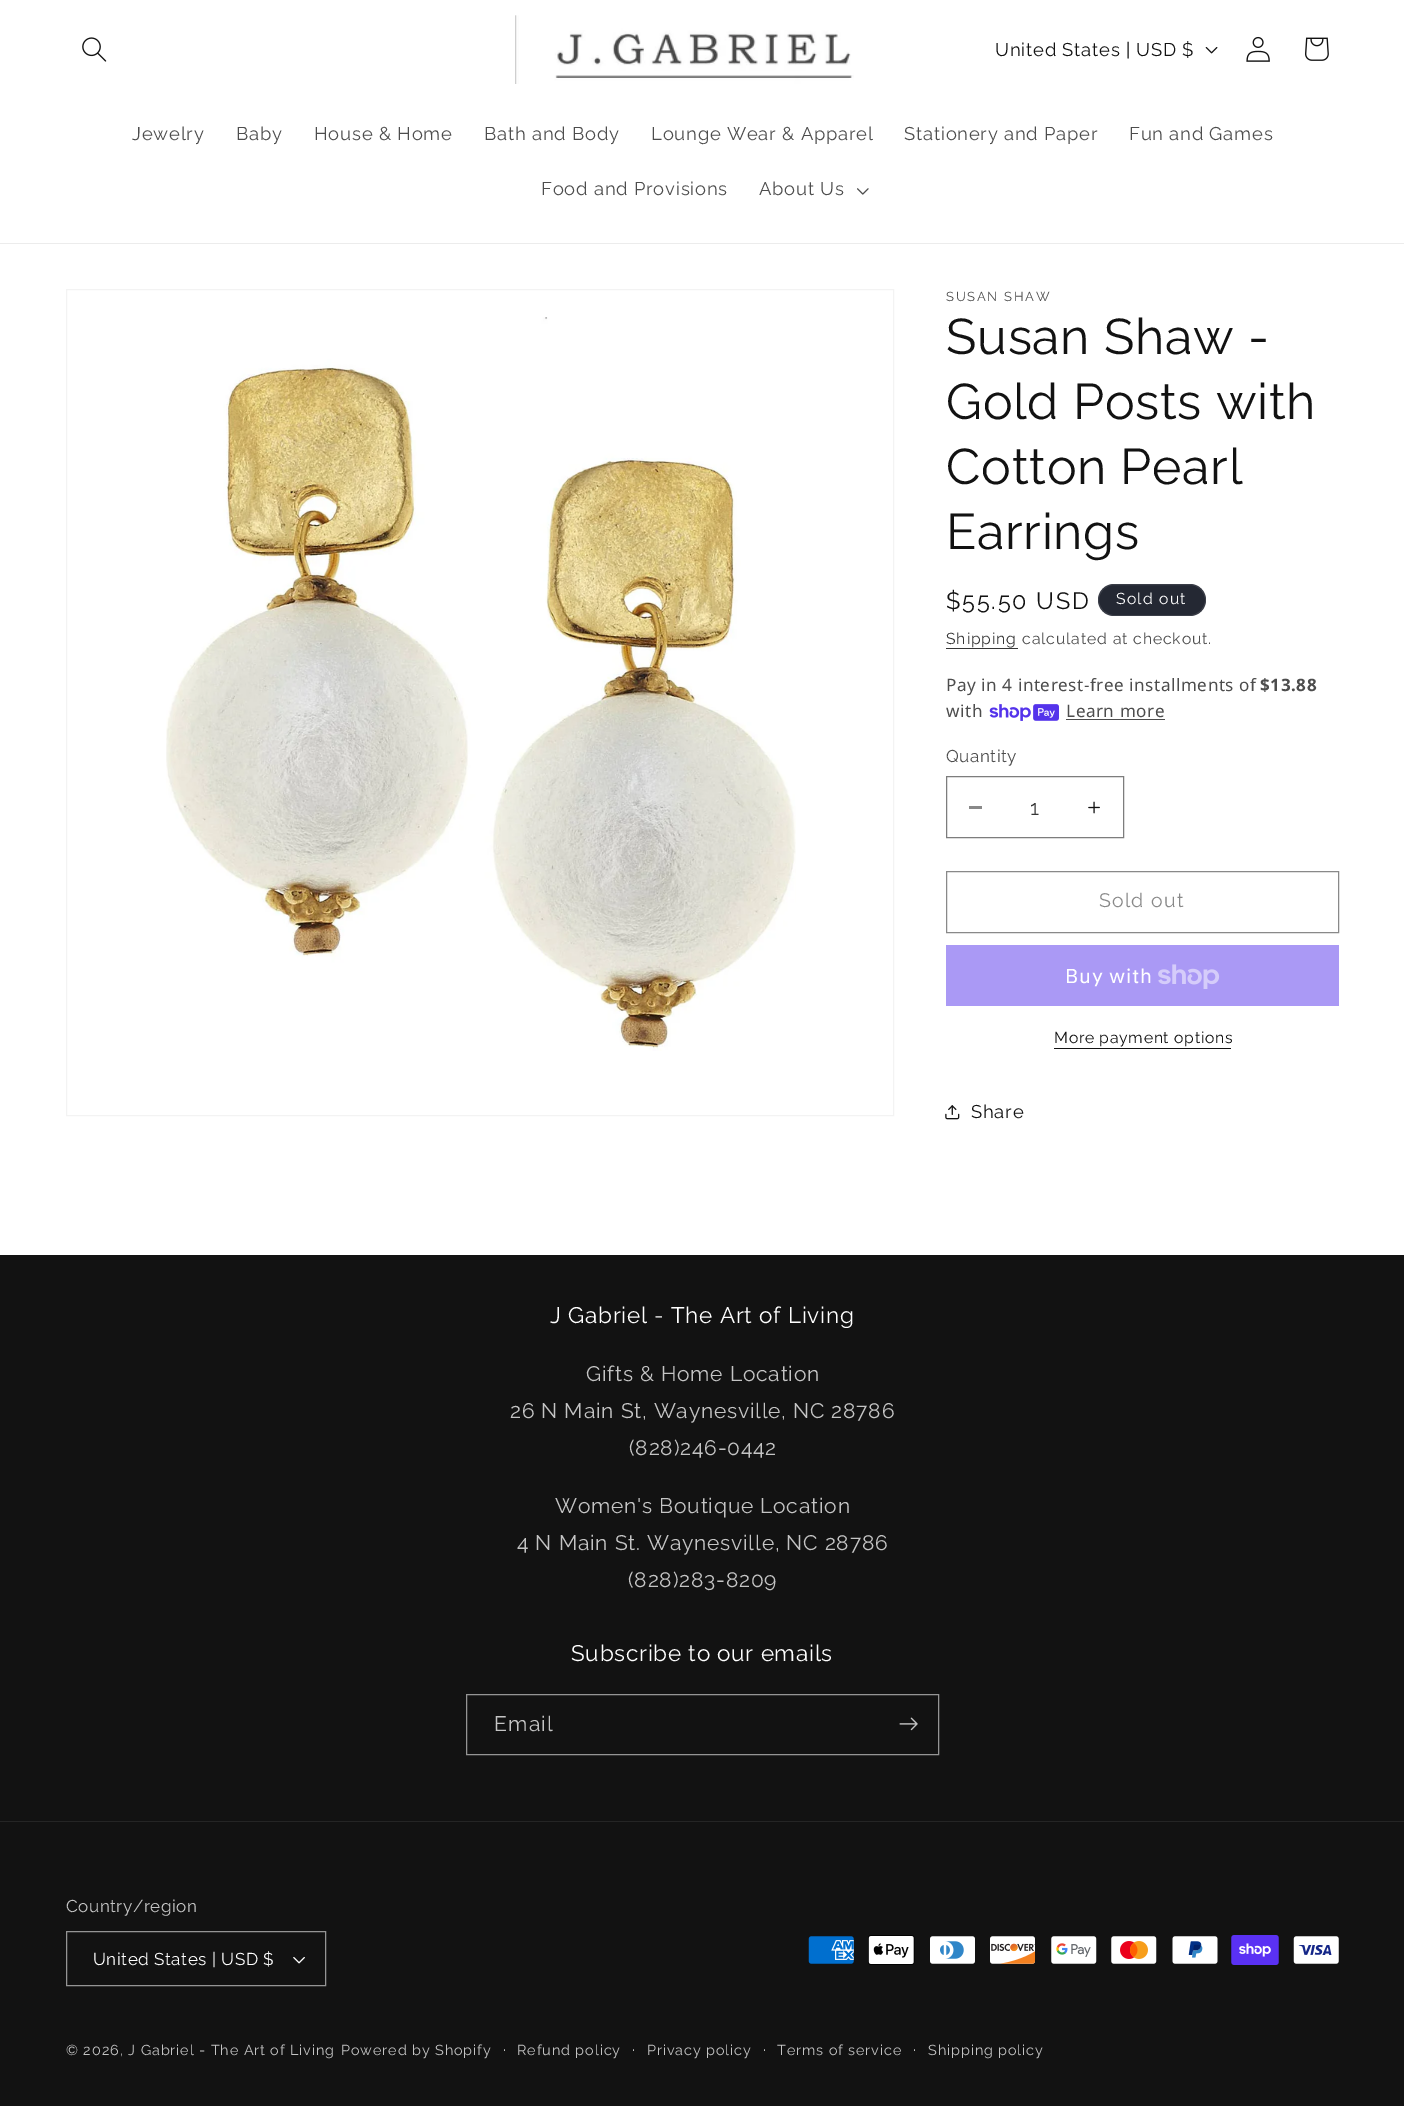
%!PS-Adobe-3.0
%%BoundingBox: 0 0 1404 2106
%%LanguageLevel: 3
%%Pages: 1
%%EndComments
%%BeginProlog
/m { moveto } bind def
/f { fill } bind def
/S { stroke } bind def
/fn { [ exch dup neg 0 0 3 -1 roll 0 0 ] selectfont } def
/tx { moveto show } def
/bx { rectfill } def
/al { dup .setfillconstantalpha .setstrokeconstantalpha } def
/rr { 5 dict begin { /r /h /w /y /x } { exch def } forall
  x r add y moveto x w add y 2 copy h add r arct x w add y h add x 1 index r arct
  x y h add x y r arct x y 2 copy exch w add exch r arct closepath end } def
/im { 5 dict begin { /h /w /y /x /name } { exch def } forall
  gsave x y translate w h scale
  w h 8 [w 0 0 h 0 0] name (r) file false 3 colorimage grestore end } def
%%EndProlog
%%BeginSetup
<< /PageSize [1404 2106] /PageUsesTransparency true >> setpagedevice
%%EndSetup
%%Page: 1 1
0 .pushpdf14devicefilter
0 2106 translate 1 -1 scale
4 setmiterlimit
1 setgray
0 0 1404 2106 bx
0.925 setgray
0 243 1404 1 bx
(image0.raw) 82 37 25 25 im
(image1.raw) 515 15 339 69 im
/Raleway-Regular 18.4 fn
0.071 setgray
995 56 m 0.8 0 (United States | USD $) ashow
(image2.raw) 1205 47 13 7 im
(image3.raw) 1246 36 24 26 im
(image4.raw) 1305 37 24 24 im
0.302 setgray
132 140 m 0.8 0 (Jewelry) ashow
236 140 m 0.8 0 (Baby) ashow
314 140 m 0.8 0 (House & Home) ashow
484 140 m 0.8 0 (Bath and Body) ashow
651 140 m 0.8 0 (Lounge Wear & Apparel) ashow
904 140 m 0.8 0 (Stationery and Paper) ashow
1129 140 m 0.8 0 (Fun and Games) ashow
541 195 m 0.8 0 (Food and Provisions) ashow
759 195 m 0.8 0 (About Us) ashow
(image5.raw) 857 188 12 7 im
0.953 setgray
66.5 289.5 827 826 rectstroke
(image6.raw) 166 317 630 734 im
/Raleway-Regular 13 fn
0.302 setgray
946 301 m 1.75 0 (SUSAN SHAW) ashow
/Raleway-Regular 50 fn
0.071 setgray
946 354 m 0.75 0 (Susan Shaw -) ashow
946 419 m 0.75 0 (Gold Posts with) ashow
946 484 m 0.75 0 (Cotton Pearl) ashow
946 549 m 0.75 0 (Earrings) ashow
/Raleway-Regular 23.5 fn
946 609 m 1.75 0 ($55.50 USD) ashow
0.141 0.157 0.2 setrgbcolor
1098 584 108 32 16 rr f
0.1 al
1 setgray
1098.5 584.5 107 31 15.5 rr S
/Raleway-Regular 15.75 fn
1 al
1116 604 m 1.25 0 (Sold out) ashow
0.212 setgray
946 644 m 0.9 0 (Shipping) ashow
946 648 72 1 bx
0.302 setgray
1022 644 m 0.9 0 (calculated at checkout.) ashow
/NotoSans-Regular 17.1 fn
946 691 m 0.55 0 (Pay in 4 interest-free installments of) ashow
/NotoSans-Bold 17.1 fn
1260 691 m 0.55 0 ($13.88) ashow
/NotoSans-Regular 17.1 fn
946 717 m 0.55 0 (with) ashow
(image7.raw) 989 704 70 17 im
1066 717 m 0.55 0 (Learn more) ashow
1066 719 99 1 bx
/Raleway-Regular 17.1 fn
946 762 m 0.55 0 (Quantity) ashow
0.537 setgray
969 806 13 3 bx
(image8.raw) 1088 801 12 13 im
0.49 setgray
946.5 776.5 177 61 rectstroke
/Raleway-Regular 21 fn
0.212 setgray
(1) 1030 815 tx
0.537 setgray
946.5 871.5 392 61 rectstroke
/Raleway-Regular 19.5 fn
1099 907 m 1.25 0 (Sold out) ashow
0.667 0.6 0.961 setrgbcolor
946 945 393 61 bx
/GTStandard-Regular 20 fn
1 setgray
1065 983 m 0.8 0 (Buy with) ashow
(image9.raw) 1158 964 62 25 im
/Raleway-Regular 15.75 fn
0.071 setgray
1054 1043 m 0.7 0 (More payment options) ashow
1054 1048 177 1 bx
(image10.raw) 945 1105 15 15 im
/Raleway-Regular 18.4 fn
971 1118 m 0.8 0 (Share) ashow
0 1255 1404 851 bx
/Raleway-Regular 22.5 fn
1 setgray
550 1323 m 0.75 0 (J Gabriel - The Art of Living) ashow
/Raleway-Regular 21 fn
0.769 setgray
586 1381 m 0.8 0 (Gifts & Home Location) ashow
510 1418 m 0.8 0 (26 N Main St, Waynesville, NC 28786) ashow
629 1455 m 0.8 0 (\(828\)246-0442) ashow
555 1513 m 0.8 0 (Women's Boutique Location) ashow
517 1550 m 0.8 0 (4 N Main St. Waynesville, NC 28786) ashow
628 1587 m 0.8 0 (\(828\)283-8209) ashow
/Raleway-Regular 22.5 fn
1 setgray
571 1661 m 0.75 0 (Subscribe to our emails) ashow
0.58 setgray
466.5 1694.5 472 60 rectstroke
/Raleway-Regular 21 fn
0.769 setgray
494 1731 m 1.25 0 (Email) ashow
(image11.raw) 899 1717 19 14 im
0.145 setgray
0 1821 1404 1 bx
/Raleway-Regular 17.1 fn
0.769 setgray
66 1912 m 0.55 0 (Country/region) ashow
(image12.raw) 293 1957 12 7 im
0.58 setgray
66.5 1931.5 259 54 rectstroke
1 setgray
93 1965 m 0.55 0 (United States | USD $) ashow
(image13.raw) 808 1936 46 28 im
(image14.raw) 868 1935 47 30 im
(image15.raw) 930 1936 45 28 im
(image16.raw) 990 1936 46 28 im
(image17.raw) 1051 1936 46 28 im
(image18.raw) 1111 1936 46 28 im
(image19.raw) 1172 1936 46 28 im
(image20.raw) 1231 1935 48 30 im
(image21.raw) 1293 1936 46 28 im
/Raleway-Regular 14.4 fn
0.769 setgray
66 2055 m 0.9 0 (© 2026, J Gabriel - The Art of Living) ashow
341 2055 m 0.9 0 (Powered by Shopify) ashow
/Raleway-Regular 15.75 fn
503 2055 m 0.9 0 (·) ashow
/Raleway-Regular 14.4 fn
517 2055 m 0.9 0 (Refund policy) ashow
/Raleway-Regular 15.75 fn
632 2055 m 0.9 0 (·) ashow
/Raleway-Regular 14.4 fn
647 2055 m 0.9 0 (Privacy policy) ashow
/Raleway-Regular 15.75 fn
763 2055 m 0.9 0 (·) ashow
/Raleway-Regular 14.4 fn
777 2055 m 0.9 0 (Terms of service) ashow
/Raleway-Regular 15.75 fn
913 2055 m 0.9 0 (·) ashow
/Raleway-Regular 14.4 fn
928 2055 m 0.9 0 (Shipping policy) ashow
.poppdf14devicefilter showpage
%%EOF
